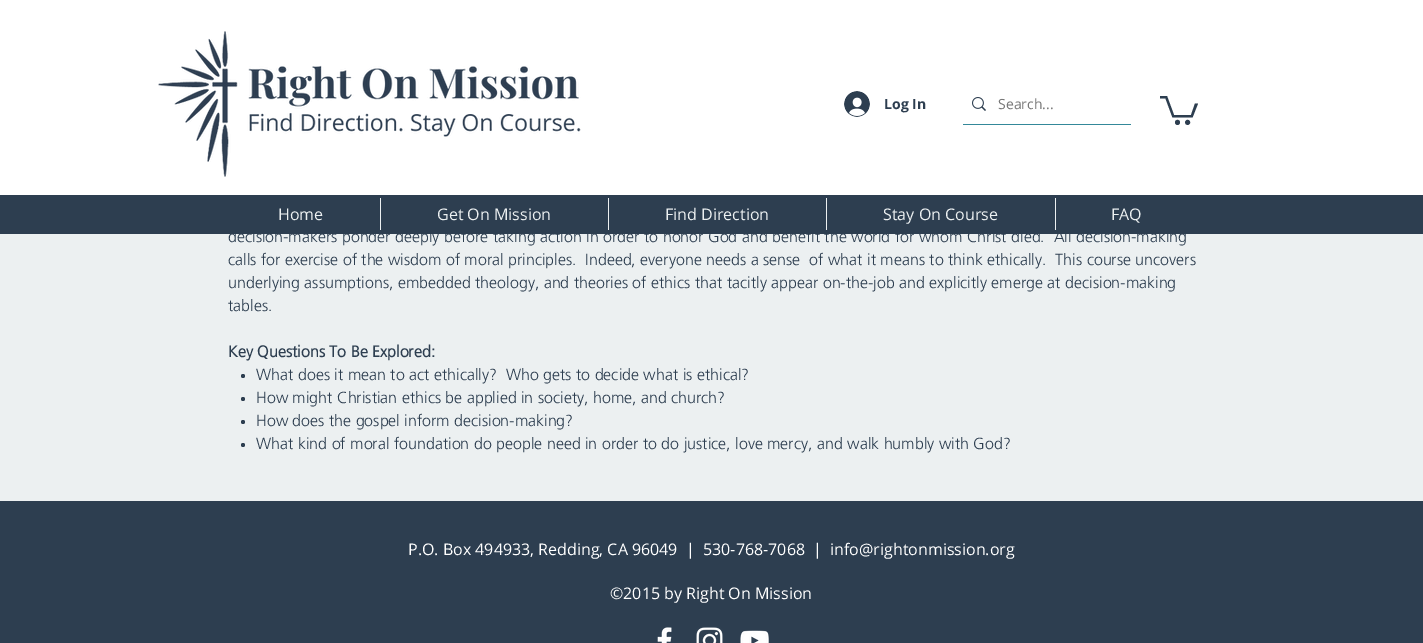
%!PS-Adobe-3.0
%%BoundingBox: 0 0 1423 643
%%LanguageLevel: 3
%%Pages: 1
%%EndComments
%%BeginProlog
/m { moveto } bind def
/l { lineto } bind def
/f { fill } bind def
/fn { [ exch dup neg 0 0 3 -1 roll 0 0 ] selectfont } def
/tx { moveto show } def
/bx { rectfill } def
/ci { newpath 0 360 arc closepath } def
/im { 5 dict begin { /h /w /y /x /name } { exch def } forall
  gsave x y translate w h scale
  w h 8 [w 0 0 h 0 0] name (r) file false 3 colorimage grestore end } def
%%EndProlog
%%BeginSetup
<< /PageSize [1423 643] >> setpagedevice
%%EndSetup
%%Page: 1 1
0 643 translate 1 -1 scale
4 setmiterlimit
0.925 0.941 0.945 setrgbcolor
0 0 1423 643 bx
1 setgray
0 0 1423 195 bx
(image0.raw) 158 31 423 146 im
(image1.raw) 844 91 26 26 im
/OpenSans-Bold 14 fn
0.176 0.243 0.314 setrgbcolor
(Log In) 884 109 tx
0.204 0.533 0.6 setrgbcolor
963 124 168 1 bx
(image2.raw) 972 97 14 14 im
/OpenSans-Regular 14 fn
0.471 setgray
(Search...) 998 109 tx
0.176 0.243 0.314 setrgbcolor
1198 103.5 m 1192.5 117.5 l 1172.5 117.5 l 1165.5 98.5 l 1160 98.5 l 1160 96 l 1167 96 l 1174 115 l 1191 115 l 1195 103.5 l f
1187.6 122.4 2.5 ci f
1177.5 122.4 2.5 ci f
0 195 1423 39 bx
/OpenSans-Regular 16 fn
0.925 0.941 0.945 setrgbcolor
(Home) 278 220 tx
/Frutiger-Light 16 fn
0.176 0.243 0.314 setrgbcolor
(decision-makers ponder deeply before taking action in order to honor God and benefit the world for whom Christ died.  All decision-making) 228 242 tx
0.925 0.941 0.945 setrgbcolor
380 198 1 32 bx
/OpenSans-Regular 16 fn
(Get On Mission) 437 220 tx
608 198 1 32 bx
(Find Direction) 665 220 tx
826 198 1 32 bx
(Stay On Course) 883 220 tx
1055 198 1 32 bx
(FAQ) 1111 220 tx
/Frutiger-Light 16 fn
0.176 0.243 0.314 setrgbcolor
(calls for exercise of the wisdom of moral principles.  Indeed, everyone needs a sense  of what it means to think ethically.  This course uncovers) 228 265 tx
(underlying assumptions, embedded theology, and theories of ethics that tacitly appear on-the-job and explicitly emerge at decision-making) 228 288 tx
(tables.) 228 311 tx
/Frutiger-Bold 16 fn
(Key Questions To Be Explored:) 228 357 tx
243 376 2 ci f
/Frutiger-Light 16 fn
(What does it mean to act ethically?  Who gets to decide what is ethical?) 256 380 tx
243 399 2 ci f
(How might Christian ethics be applied in society, home, and church?) 256 403 tx
243 422 2 ci f
(How does the gospel inform decision-making?) 256 426 tx
243 445 2 ci f
(What kind of moral foundation do people need in order to do justice, love mercy, and walk humbly with God?) 256 449 tx
0 501 1423 142 bx
/OpenSans-Regular 16 fn
1 setgray
(P.O. Box 494933, Redding, CA 96049  |  530-768-7068  |) 408 555 tx
(info@rightonmission.org) 830 555 tx
(©2015 by Right On Mission) 610 599 tx
(image3.raw) 657 627 15 16 im
(image4.raw) 696 627 27 16 im
(image5.raw) 740 630 29 13 im
showpage
%%EOF
